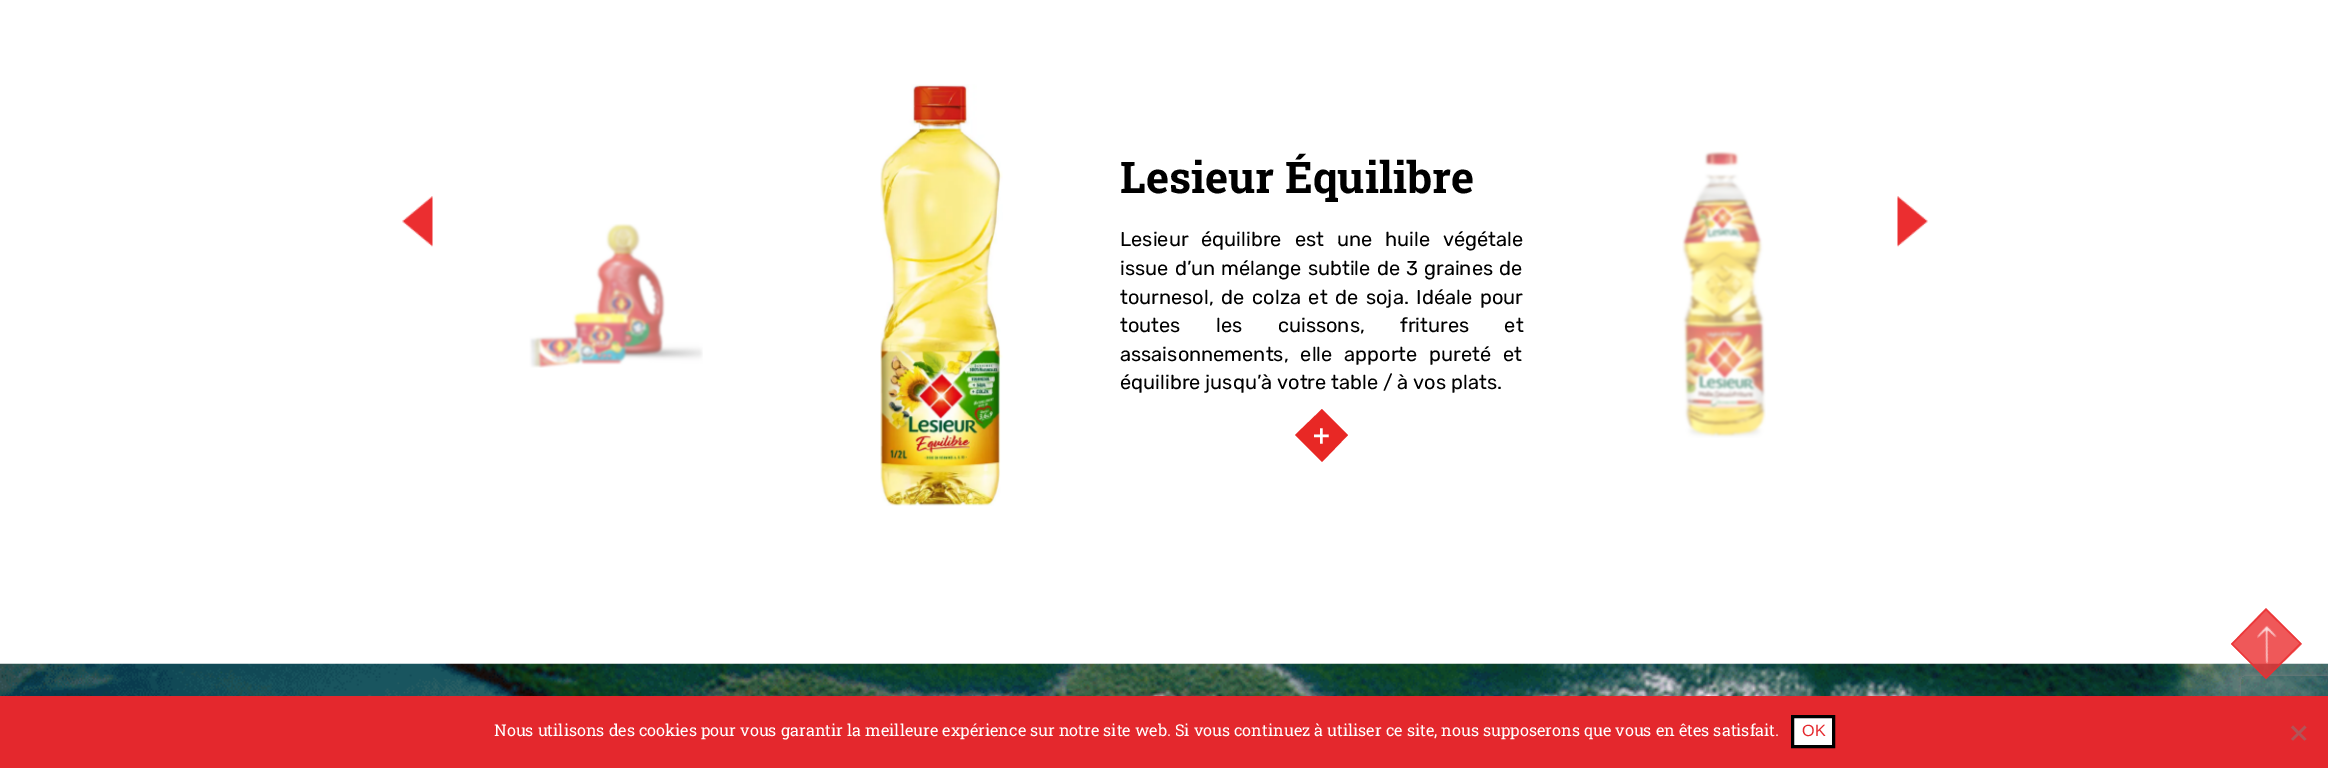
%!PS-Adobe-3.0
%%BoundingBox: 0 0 2328 768
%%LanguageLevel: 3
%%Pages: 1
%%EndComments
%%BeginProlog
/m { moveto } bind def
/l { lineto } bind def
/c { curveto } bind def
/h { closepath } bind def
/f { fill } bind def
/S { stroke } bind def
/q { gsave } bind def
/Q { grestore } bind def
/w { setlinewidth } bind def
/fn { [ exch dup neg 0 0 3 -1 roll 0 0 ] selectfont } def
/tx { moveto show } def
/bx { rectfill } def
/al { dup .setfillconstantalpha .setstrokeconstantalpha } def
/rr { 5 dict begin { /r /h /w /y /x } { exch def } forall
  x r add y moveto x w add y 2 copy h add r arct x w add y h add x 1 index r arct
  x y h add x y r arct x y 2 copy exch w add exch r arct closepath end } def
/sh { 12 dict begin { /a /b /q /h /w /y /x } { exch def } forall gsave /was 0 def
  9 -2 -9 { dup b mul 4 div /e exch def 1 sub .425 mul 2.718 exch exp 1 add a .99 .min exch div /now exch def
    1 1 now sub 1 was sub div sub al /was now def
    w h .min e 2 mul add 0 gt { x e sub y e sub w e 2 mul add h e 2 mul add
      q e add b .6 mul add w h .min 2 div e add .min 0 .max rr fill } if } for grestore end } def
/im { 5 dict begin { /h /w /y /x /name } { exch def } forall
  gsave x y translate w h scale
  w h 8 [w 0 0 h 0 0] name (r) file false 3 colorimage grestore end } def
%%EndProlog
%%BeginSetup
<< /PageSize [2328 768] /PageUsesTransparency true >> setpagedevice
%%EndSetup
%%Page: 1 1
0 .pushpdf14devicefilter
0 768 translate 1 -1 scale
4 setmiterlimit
1 setgray
0 0 2328 768 bx
(image0.raw) 402 196 31 51 im
(image1.raw) 529 223 174 145 im
(image2.raw) 880 84 123 422 im
/RobotoSlab-Bold 43.75 fn
0 setgray
(Lesieur Équilibre) 1120 193 tx
/Rubik-Regular 20 fn
1120 246 m 8 0 32 (Lesieur équilibre est une huile végétale) widthshow
1120 275 m 1.25 0 32 (issue d’un mélange subtile de 3 graines de) widthshow
1120 304 m 2.75 0 32 (tournesol, de colza et de soja. Idéale pour) widthshow
1120 332 m 30.5 0 32 (toutes les cuissons, fritures et) widthshow
1120 361 m 7 0 32 (assaisonnements, elle apporte pureté et) widthshow
(équilibre jusqu’à votre table / à vos plats.) 1120 389 tx
0.91 0.157 0.145 setrgbcolor
1295 435 m 1322 409 l 1348 435 l 1322 462 l h f
/RobotoSlab-Regular 30 fn
1 setgray
(+) 1313 446 tx
(image3.raw) 1682 151 84 287 im
(image4.raw) 1897 196 31 51 im
(image5.raw) 0 663 2328 33 im
q
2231 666 m 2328 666 l 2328 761 l 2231 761 l h 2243.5 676 m 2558.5 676 l 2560 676 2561 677 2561 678.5 c 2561 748.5 l 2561 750 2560 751 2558.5 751 c 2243.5 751 l 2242 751 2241 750 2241 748.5 c 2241 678.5 l 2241 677 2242 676 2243.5 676 c h eoclip newpath
0.502 setgray
2241 676 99 75 2.5 3 1 sh
Q
0.8 al
0.922 0.18 0.188 setrgbcolor
2231 644 m 2266 608 l 2302 644 l 2266 679 l h f
1.3 w
2232 644 m 2266 609.5 l 2300.5 643.5 l 2266 678 l h S
1 al
(image6.raw) 2257 625 20 39 im
0.894 0.157 0.176 setrgbcolor
0 696 2328 72 bx
/RobotoSlab-Regular 16.25 fn
1 setgray
(Nous utilisons des cookies pour vous garantir la meilleure expérience sur notre site web. Si vous continuez à utiliser ce site, nous supposerons que vous en êtes satisfait.) 494 736 tx
1792.5 716.5 m 1833.5 716.5 l 1833.5 746.5 l 1792.5 746.5 l h q f Q
0 setgray
3 w
S
/LiberationSans-Regular 16.25 fn
0.894 0.157 0.176 setrgbcolor
(OK) 1802 736 tx
0.698 0.329 0.341 setrgbcolor
2304.5 725.5 m 2306.5 727.5 l 2293 740.5 l 2291 739 l h f
2291 727.5 m 2293 725.5 l 2306.5 739 l 2304.5 740.5 l h f
.poppdf14devicefilter showpage
%%EOF
